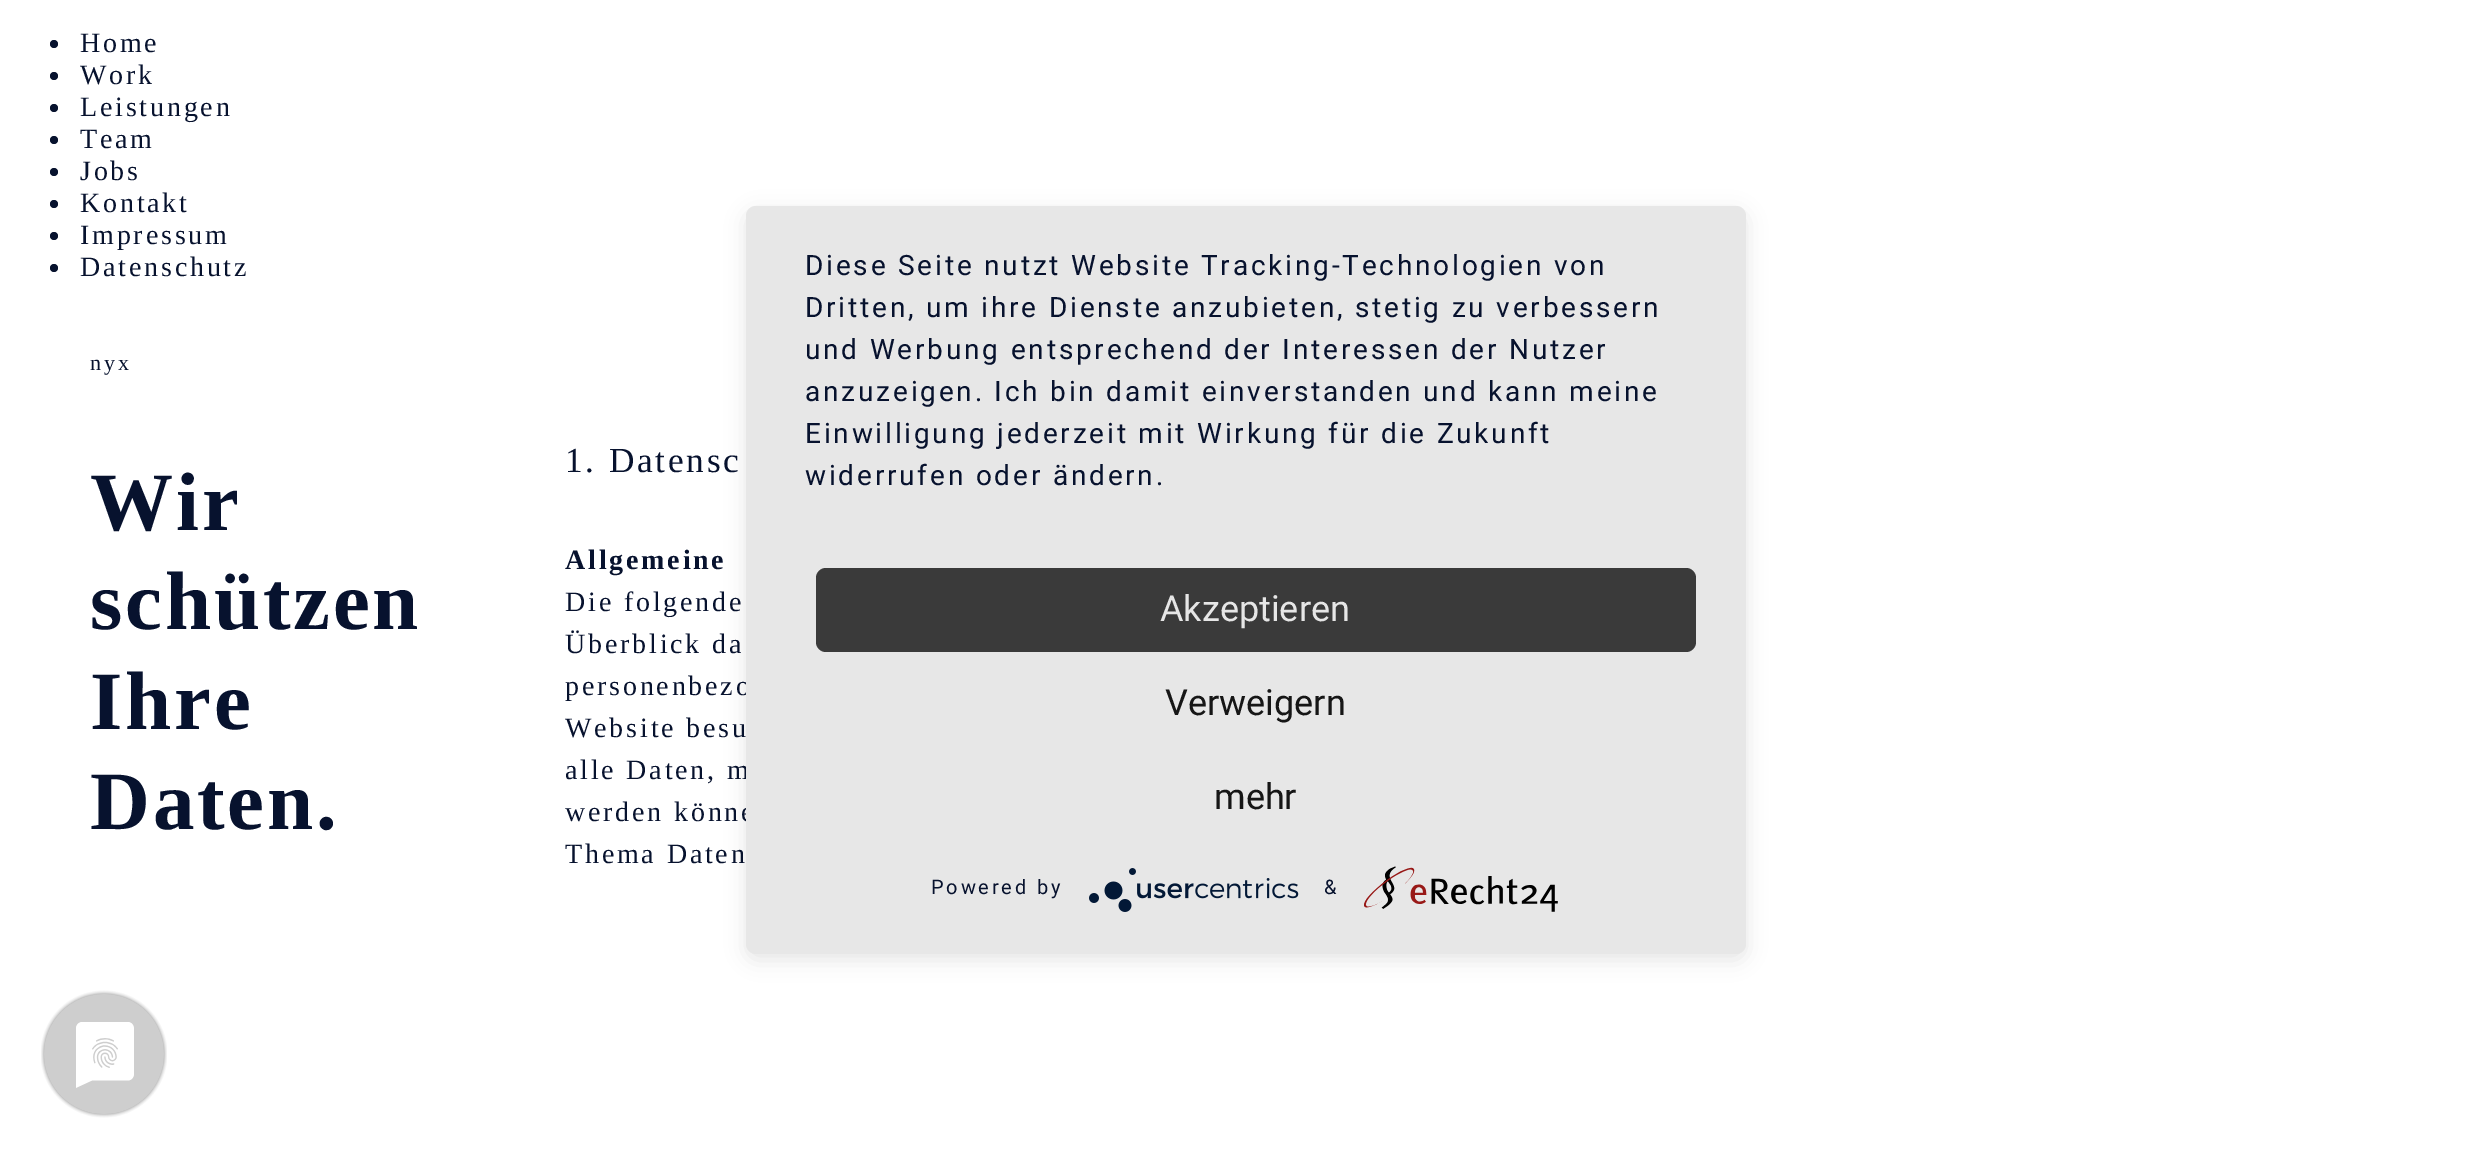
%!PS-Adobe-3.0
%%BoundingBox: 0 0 2489 1157
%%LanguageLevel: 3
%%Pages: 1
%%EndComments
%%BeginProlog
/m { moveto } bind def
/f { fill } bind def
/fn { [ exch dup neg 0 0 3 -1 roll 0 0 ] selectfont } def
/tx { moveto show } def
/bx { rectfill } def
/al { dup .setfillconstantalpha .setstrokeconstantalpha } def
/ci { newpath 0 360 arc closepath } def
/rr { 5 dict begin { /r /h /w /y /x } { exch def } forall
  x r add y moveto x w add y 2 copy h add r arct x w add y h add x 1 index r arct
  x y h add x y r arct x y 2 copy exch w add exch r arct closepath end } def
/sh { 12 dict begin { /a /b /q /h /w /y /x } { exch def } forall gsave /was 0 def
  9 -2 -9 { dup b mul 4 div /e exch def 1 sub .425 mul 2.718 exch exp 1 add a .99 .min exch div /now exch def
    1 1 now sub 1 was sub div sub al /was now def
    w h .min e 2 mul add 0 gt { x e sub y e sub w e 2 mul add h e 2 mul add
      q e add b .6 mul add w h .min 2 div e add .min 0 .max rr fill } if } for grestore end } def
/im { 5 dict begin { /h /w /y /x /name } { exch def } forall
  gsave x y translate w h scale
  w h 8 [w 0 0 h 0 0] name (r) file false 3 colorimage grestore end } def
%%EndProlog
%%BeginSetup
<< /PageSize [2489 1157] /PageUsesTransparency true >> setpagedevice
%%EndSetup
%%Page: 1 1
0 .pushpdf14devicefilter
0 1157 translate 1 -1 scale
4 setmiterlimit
1 setgray
0 0 2489 1157 bx
0.027 0.071 0.18 setrgbcolor
54 44 4 ci f
/LiberationSerif-Regular 28 fn
80 52 m 2.8 0 (Home) ashow
54 76 4 ci f
80 84 m 2.8 0 (Work) ashow
54 108 4 ci f
80 116 m 2.8 0 (Leistungen) ashow
54 140 4 ci f
80 148 m 2.8 0 (Team) ashow
54 172 4 ci f
80 180 m 2.8 0 (Jobs) ashow
54 204 4 ci f
80 212 m 2.8 0 (Kontakt) ashow
54 236 4 ci f
80 244 m 2.8 0 (Impressum) ashow
54 268 4 ci f
80 276 m 2.8 0 (Datenschutz) ashow
/LiberationSerif-Regular 22 fn
90 370 m 2.8 0 (nyx) ashow
/LiberationSerif-Bold 83 fn
90 530 m 2.8 0 (Wir) ashow
90 629 m 2.8 0 (schützen) ashow
90 729 m 2.8 0 (Ihre) ashow
90 829 m 2.8 0 (Daten.) ashow
/LiberationSerif-Regular 35.25 fn
565 472 m 2.8 0 (1. Datensc) ashow
/LiberationSerif-Bold 28 fn
565 569 m 2.8 0 (Allgemeine) ashow
/LiberationSerif-Regular 28 fn
565 611 m 2.8 0 (Die folgende) ashow
565 653 m 2.8 0 (Überblick da) ashow
565 695 m 2.8 0 (personenbezo) ashow
565 737 m 2.8 0 (Website besu) ashow
565 779 m 2.8 0 (alle Daten, m) ashow
565 821 m 2.8 0 (werden könne) ashow
565 863 m 2.8 0 (Thema Daten) ashow
0 setgray
746 212 1000 748 10 10 0.1 sh
0.906 setgray
746 206 1000 748 10 rr f
/Roboto-Regular 28 fn
0.027 0.071 0.18 setrgbcolor
805 275 m 2.8 0 (Diese Seite nutzt Website Tracking-Technologien von) ashow
805 317 m 2.8 0 (Dritten, um ihre Dienste anzubieten, stetig zu verbessern) ashow
805 359 m 2.8 0 (und Werbung entsprechend der Interessen der Nutzer) ashow
805 401 m 2.8 0 (anzuzeigen. Ich bin damit einverstanden und kann meine) ashow
805 443 m 2.8 0 (Einwilligung jederzeit mit Wirkung für die Zukunft) ashow
805 485 m 2.8 0 (widerrufen oder ändern.) ashow
0.227 setgray
816 568 880 84 10 rr f
/Roboto-Regular 36 fn
0.902 setgray
(Akzeptieren) 1160 621 tx
0.086 setgray
(Verweigern) 1165 715 tx
(mehr) 1214 809 tx
/Roboto-Regular 20 fn
0.027 0.071 0.18 setrgbcolor
931 894 m 2.8 0 (Powered by) ashow
(image0.raw) 1089 868 210 44 im
1324 894 m 2.8 0 (&) ashow
(image1.raw) 1364 866 194 46 im
(image2.raw) 41 990 126 128 im
.poppdf14devicefilter showpage
%%EOF
